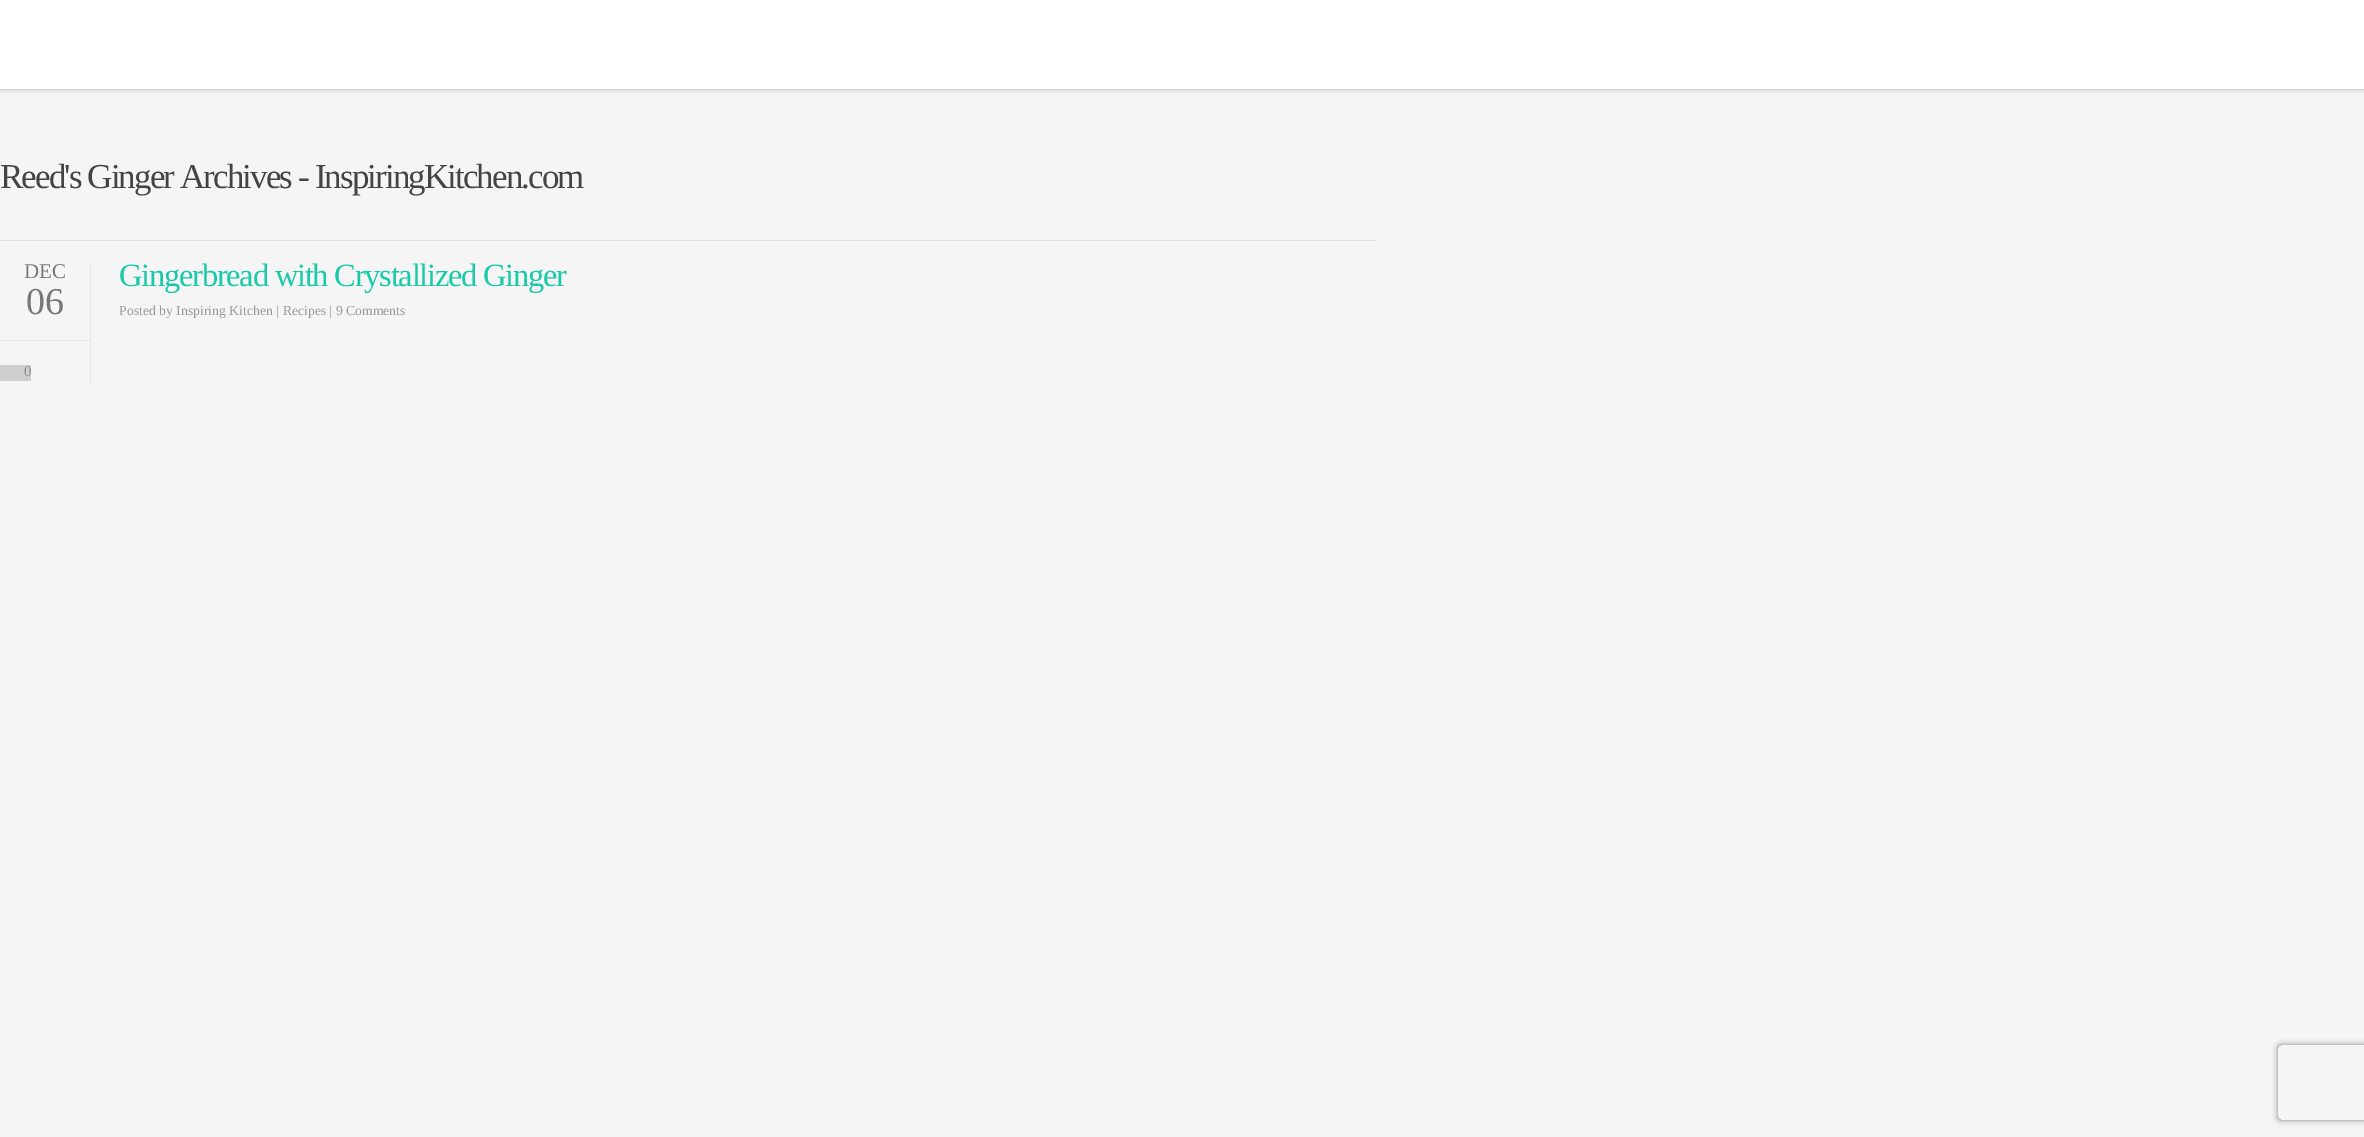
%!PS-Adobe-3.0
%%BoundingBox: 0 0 2364 1137
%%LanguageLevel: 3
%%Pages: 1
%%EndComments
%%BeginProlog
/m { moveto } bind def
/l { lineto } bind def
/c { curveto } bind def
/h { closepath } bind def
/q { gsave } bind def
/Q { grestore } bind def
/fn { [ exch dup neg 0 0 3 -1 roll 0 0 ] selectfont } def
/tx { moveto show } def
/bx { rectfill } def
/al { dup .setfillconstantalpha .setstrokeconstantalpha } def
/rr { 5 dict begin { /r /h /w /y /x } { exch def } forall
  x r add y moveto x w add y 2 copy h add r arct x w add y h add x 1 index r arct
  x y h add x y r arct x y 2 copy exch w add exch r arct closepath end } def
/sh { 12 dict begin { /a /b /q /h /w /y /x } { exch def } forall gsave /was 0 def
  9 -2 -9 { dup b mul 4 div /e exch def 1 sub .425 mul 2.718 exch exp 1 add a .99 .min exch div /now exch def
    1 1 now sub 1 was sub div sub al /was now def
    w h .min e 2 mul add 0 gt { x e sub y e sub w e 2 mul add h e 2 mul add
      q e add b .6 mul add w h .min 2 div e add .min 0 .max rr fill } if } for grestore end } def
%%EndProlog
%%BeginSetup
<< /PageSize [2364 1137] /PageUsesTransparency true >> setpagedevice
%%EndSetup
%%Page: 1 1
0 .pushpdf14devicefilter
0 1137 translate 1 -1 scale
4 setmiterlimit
0.961 setgray
0 0 2364 1137 bx
0 setgray
0 0 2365 89 0 2 0.33 sh
1 setgray
0 0 2364 89 bx
0.867 setgray
0 240 1375 1 bx
/LiberationSerif-Regular 35 fn
0.267 setgray
0 188 m -1.9 0 (Reed's Ginger Archives - InspiringKitchen.com) ashow
0.902 setgray
90 265 1 120 bx
/LiberationSerif-Regular 21 fn
0.467 setgray
(DEC) 24 278 tx
0.902 setgray
0 340 90 1 bx
/LiberationSerif-Regular 38 fn
0.467 setgray
(06) 26 314 tx
0.812 setgray
0 365 31 16 bx
/LiberationSerif-Regular 15 fn
0.533 setgray
(0) 24 376 tx
/LiberationSerif-Regular 32.5 fn
0.094 0.792 0.659 setrgbcolor
119 286 m -1.25 0 (Gingerbread with Crystallized Ginger) ashow
/LiberationSerif-Regular 13.75 fn
0.6 setgray
(Posted by Inspiring Kitchen | Recipes | 9 Comments) 119 315 tx
q
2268 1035 m 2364 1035 l 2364 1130 l 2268 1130 l h 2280.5 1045 m 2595.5 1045 l 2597 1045 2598 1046 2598 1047.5 c 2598 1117.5 l 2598 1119 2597 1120 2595.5 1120 c 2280.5 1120 l 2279 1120 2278 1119 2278 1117.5 c 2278 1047.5 l 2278 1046 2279 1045 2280.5 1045 c h eoclip newpath
0.502 setgray
2278 1045 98 75 2.5 3 1 sh
Q
.poppdf14devicefilter showpage
%%EOF
